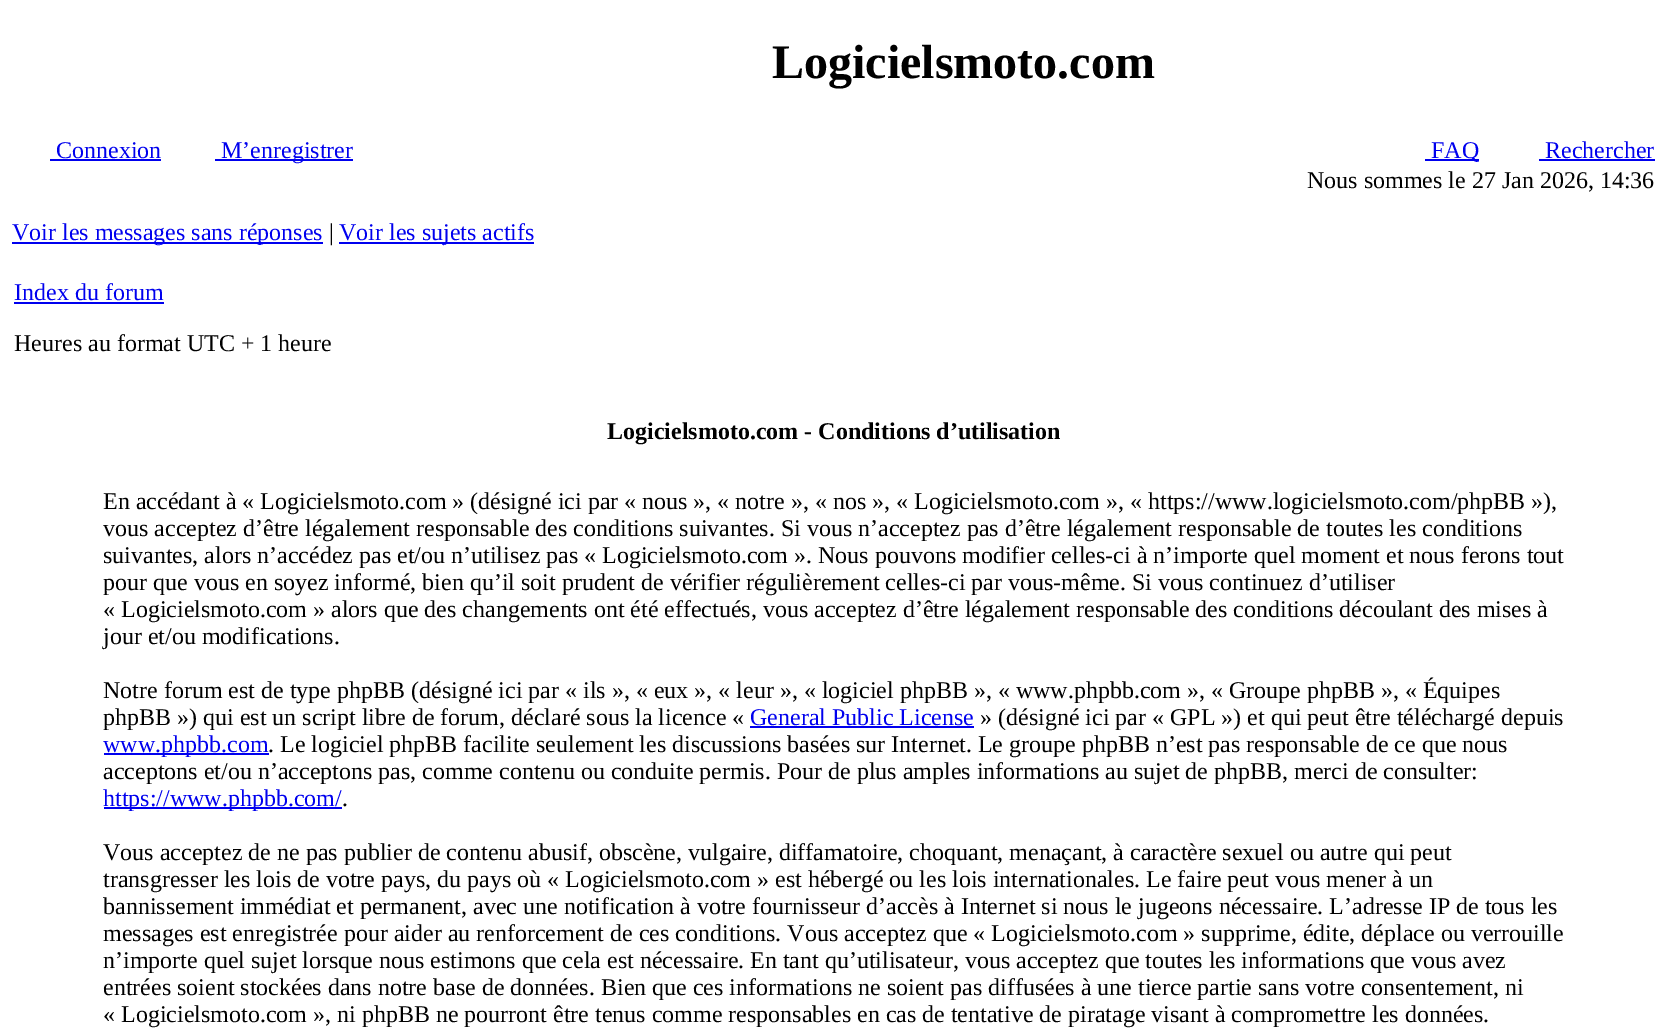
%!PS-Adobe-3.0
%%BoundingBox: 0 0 1667 1033
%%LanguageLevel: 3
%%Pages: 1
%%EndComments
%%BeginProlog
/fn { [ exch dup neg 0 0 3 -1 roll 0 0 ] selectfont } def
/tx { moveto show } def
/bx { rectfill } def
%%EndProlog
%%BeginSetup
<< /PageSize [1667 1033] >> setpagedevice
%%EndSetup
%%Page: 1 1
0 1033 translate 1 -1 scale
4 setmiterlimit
1 setgray
0 0 1667 1033 bx
/LiberationSerif-Bold 48 fn
0 setgray
(Logicielsmoto.com) 772 78 tx
/LiberationSerif-Regular 24 fn
0 0 0.933 setrgbcolor
(Connexion) 56 158 tx
50 159 111 2 bx
215 159 138 2 bx
(M’enregistrer) 221 158 tx
1425 159 54 2 bx
(FAQ) 1431 158 tx
(Rechercher) 1545 158 tx
1539 159 116 2 bx
0 setgray
(Nous sommes le 27 Jan 2026, 14:36) 1307 188 tx
0 0 0.933 setrgbcolor
12 242 311 2 bx
(Voir les messages sans réponses) 12 240 tx
0 setgray
(|) 329 240 tx
0 0 0.933 setrgbcolor
339 242 195 2 bx
(Voir les sujets actifs) 339 240 tx
(Index du forum) 14 300 tx
14 302 150 2 bx
0 setgray
(Heures au format UTC + 1 heure) 14 351 tx
/LiberationSerif-Bold 24 fn
(Logicielsmoto.com - Conditions d’utilisation) 607 439 tx
/LiberationSerif-Regular 24 fn
(En accédant à « Logicielsmoto.com » \(désigné ici par « nous », « notre », « nos », « Logicielsmoto.com », « https://www.logicielsmoto.com/phpBB »\),) 103 509 tx
(vous acceptez d’être légalement responsable des conditions suivantes. Si vous n’acceptez pas d’être légalement responsable de toutes les conditions) 103 536 tx
(suivantes, alors n’accédez pas et/ou n’utilisez pas « Logicielsmoto.com ». Nous pouvons modifier celles-ci à n’importe quel moment et nous ferons tout) 103 563 tx
(pour que vous en soyez informé, bien qu’il soit prudent de vérifier régulièrement celles-ci par vous-même. Si vous continuez d’utiliser) 103 590 tx
(« Logicielsmoto.com » alors que des changements ont été effectués, vous acceptez d’être légalement responsable des conditions découlant des mises à) 103 617 tx
(jour et/ou modifications.) 103 644 tx
(Notre forum est de type phpBB \(désigné ici par « ils », « eux », « leur », « logiciel phpBB », « www.phpbb.com », « Groupe phpBB », « Équipes) 103 698 tx
(phpBB »\) qui est un script libre de forum, déclaré sous la licence «) 103 725 tx
0 0 0.933 setrgbcolor
(General Public License) 750 725 tx
750 726 224 2 bx
0 setgray
(» \(désigné ici par « GPL »\) et qui peut être téléchargé depuis) 980 725 tx
0 0 0.933 setrgbcolor
104 753 165 2 bx
(www.phpbb.com) 103 752 tx
0 setgray
(. Le logiciel phpBB facilite seulement les discussions basées sur Internet. Le groupe phpBB n’est pas responsable de ce que nous) 268 752 tx
(acceptons et/ou n’acceptons pas, comme contenu ou conduite permis. Pour de plus amples informations au sujet de phpBB, merci de consulter:) 103 779 tx
0 0 0.933 setrgbcolor
104 807 238 2 bx
(https://www.phpbb.com/) 103 806 tx
0 setgray
(.) 342 806 tx
(Vous acceptez de ne pas publier de contenu abusif, obscène, vulgaire, diffamatoire, choquant, menaçant, à caractère sexuel ou autre qui peut) 103 860 tx
(transgresser les lois de votre pays, du pays où « Logicielsmoto.com » est hébergé ou les lois internationales. Le faire peut vous mener à un) 103 887 tx
(bannissement immédiat et permanent, avec une notification à votre fournisseur d’accès à Internet si nous le jugeons nécessaire. L’adresse IP de tous les) 103 914 tx
(messages est enregistrée pour aider au renforcement de ces conditions. Vous acceptez que « Logicielsmoto.com » supprime, édite, déplace ou verrouille) 103 941 tx
(n’importe quel sujet lorsque nous estimons que cela est nécessaire. En tant qu’utilisateur, vous acceptez que toutes les informations que vous avez) 103 968 tx
(entrées soient stockées dans notre base de données. Bien que ces informations ne soient pas diffusées à une tierce partie sans votre consentement, ni) 103 995 tx
(« Logicielsmoto.com », ni phpBB ne pourront être tenus comme responsables en cas de tentative de piratage visant à compromettre les données.) 103 1022 tx
showpage
%%EOF
